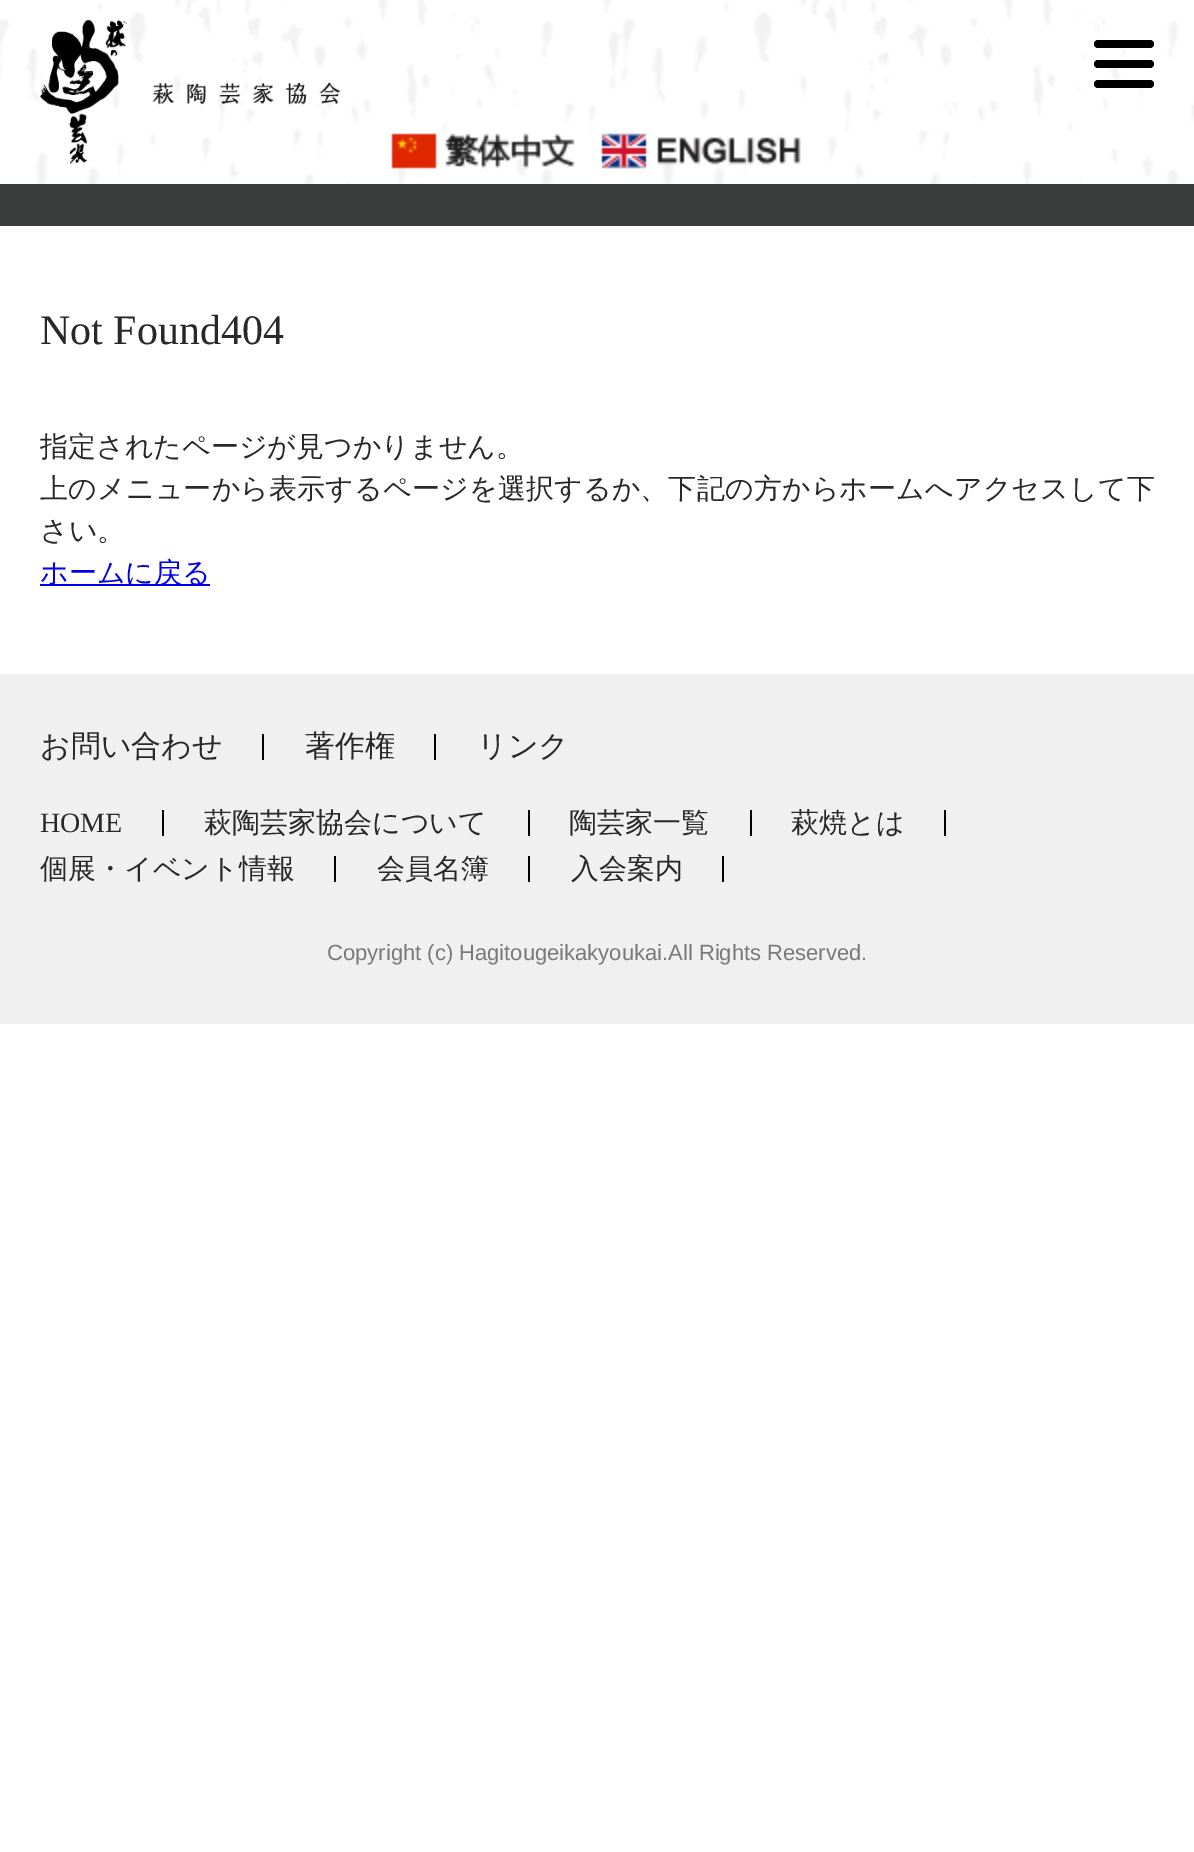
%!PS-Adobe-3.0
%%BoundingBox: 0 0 1194 1852
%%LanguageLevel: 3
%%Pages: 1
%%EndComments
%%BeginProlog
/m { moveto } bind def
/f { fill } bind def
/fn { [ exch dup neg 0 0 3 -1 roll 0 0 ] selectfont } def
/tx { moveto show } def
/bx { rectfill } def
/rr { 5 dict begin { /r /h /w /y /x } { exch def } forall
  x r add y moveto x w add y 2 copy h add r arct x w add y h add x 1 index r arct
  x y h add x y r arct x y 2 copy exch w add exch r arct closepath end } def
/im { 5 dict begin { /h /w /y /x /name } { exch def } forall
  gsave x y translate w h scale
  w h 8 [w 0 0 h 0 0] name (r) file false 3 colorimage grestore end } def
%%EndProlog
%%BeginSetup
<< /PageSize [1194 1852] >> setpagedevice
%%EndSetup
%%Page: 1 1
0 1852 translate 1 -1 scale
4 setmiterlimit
1 setgray
0 0 1194 1852 bx
(image0.raw) 0 0 1194 184 im
(image1.raw) 40 20 300 144 im
0 setgray
1094 40 60 8 4 rr f
1094 60 60 8 4 rr f
1094 80 60 8 4 rr f
(image2.raw) 391 133 184 36 im
(image3.raw) 601 133 200 36 im
0.231 0.235 0.235 setrgbcolor
0 184 1194 42 bx
/LiberationSerif-Regular 42 fn
0.157 setgray
(Not Found404) 40 344 tx
/WenQuanYiZenHei-Medium 28 fn
(指定されたページが見つかりません。) 40 456 tx
40 498 m 0.15 0 (上のメニューから表示するページを選択するか、下記の方からホームへアクセスして下) ashow
(さい。) 40 540 tx
0 0 0.933 setrgbcolor
40 584 170 2 bx
(ホームに戻る) 40 582 tx
0.941 setgray
0 674 1194 350 bx
0 setgray
262 734 2 26 bx
/WenQuanYiZenHei-Medium 30 fn
0.157 setgray
(お問い合わせ) 40 756 tx
0 setgray
434 734 2 26 bx
0.157 setgray
(著作権) 305 756 tx
(リンク) 477 756 tx
0 setgray
162 810 2 26 bx
/LiberationSerif-Regular 28 fn
0.157 setgray
(HOME) 40 832 tx
0 setgray
528 810 2 26 bx
/WenQuanYiZenHei-Medium 28 fn
0.157 setgray
(萩陶芸家協会について) 204 832 tx
0 setgray
750 810 2 26 bx
0.157 setgray
(陶芸家一覧) 569 832 tx
0 setgray
944 810 2 26 bx
0.157 setgray
(萩焼とは) 791 832 tx
0 setgray
334 856 2 26 bx
0.157 setgray
(個展・イベント情報) 40 878 tx
0 setgray
528 856 2 26 bx
0.157 setgray
(会員名簿) 377 878 tx
0 setgray
722 856 2 26 bx
0.157 setgray
(入会案内) 571 878 tx
/LiberationSans-Regular 22 fn
0.475 setgray
(Copyright \(c\) Hagitougeikakyoukai.All Rights Reserved.) 327 960 tx
showpage
%%EOF
